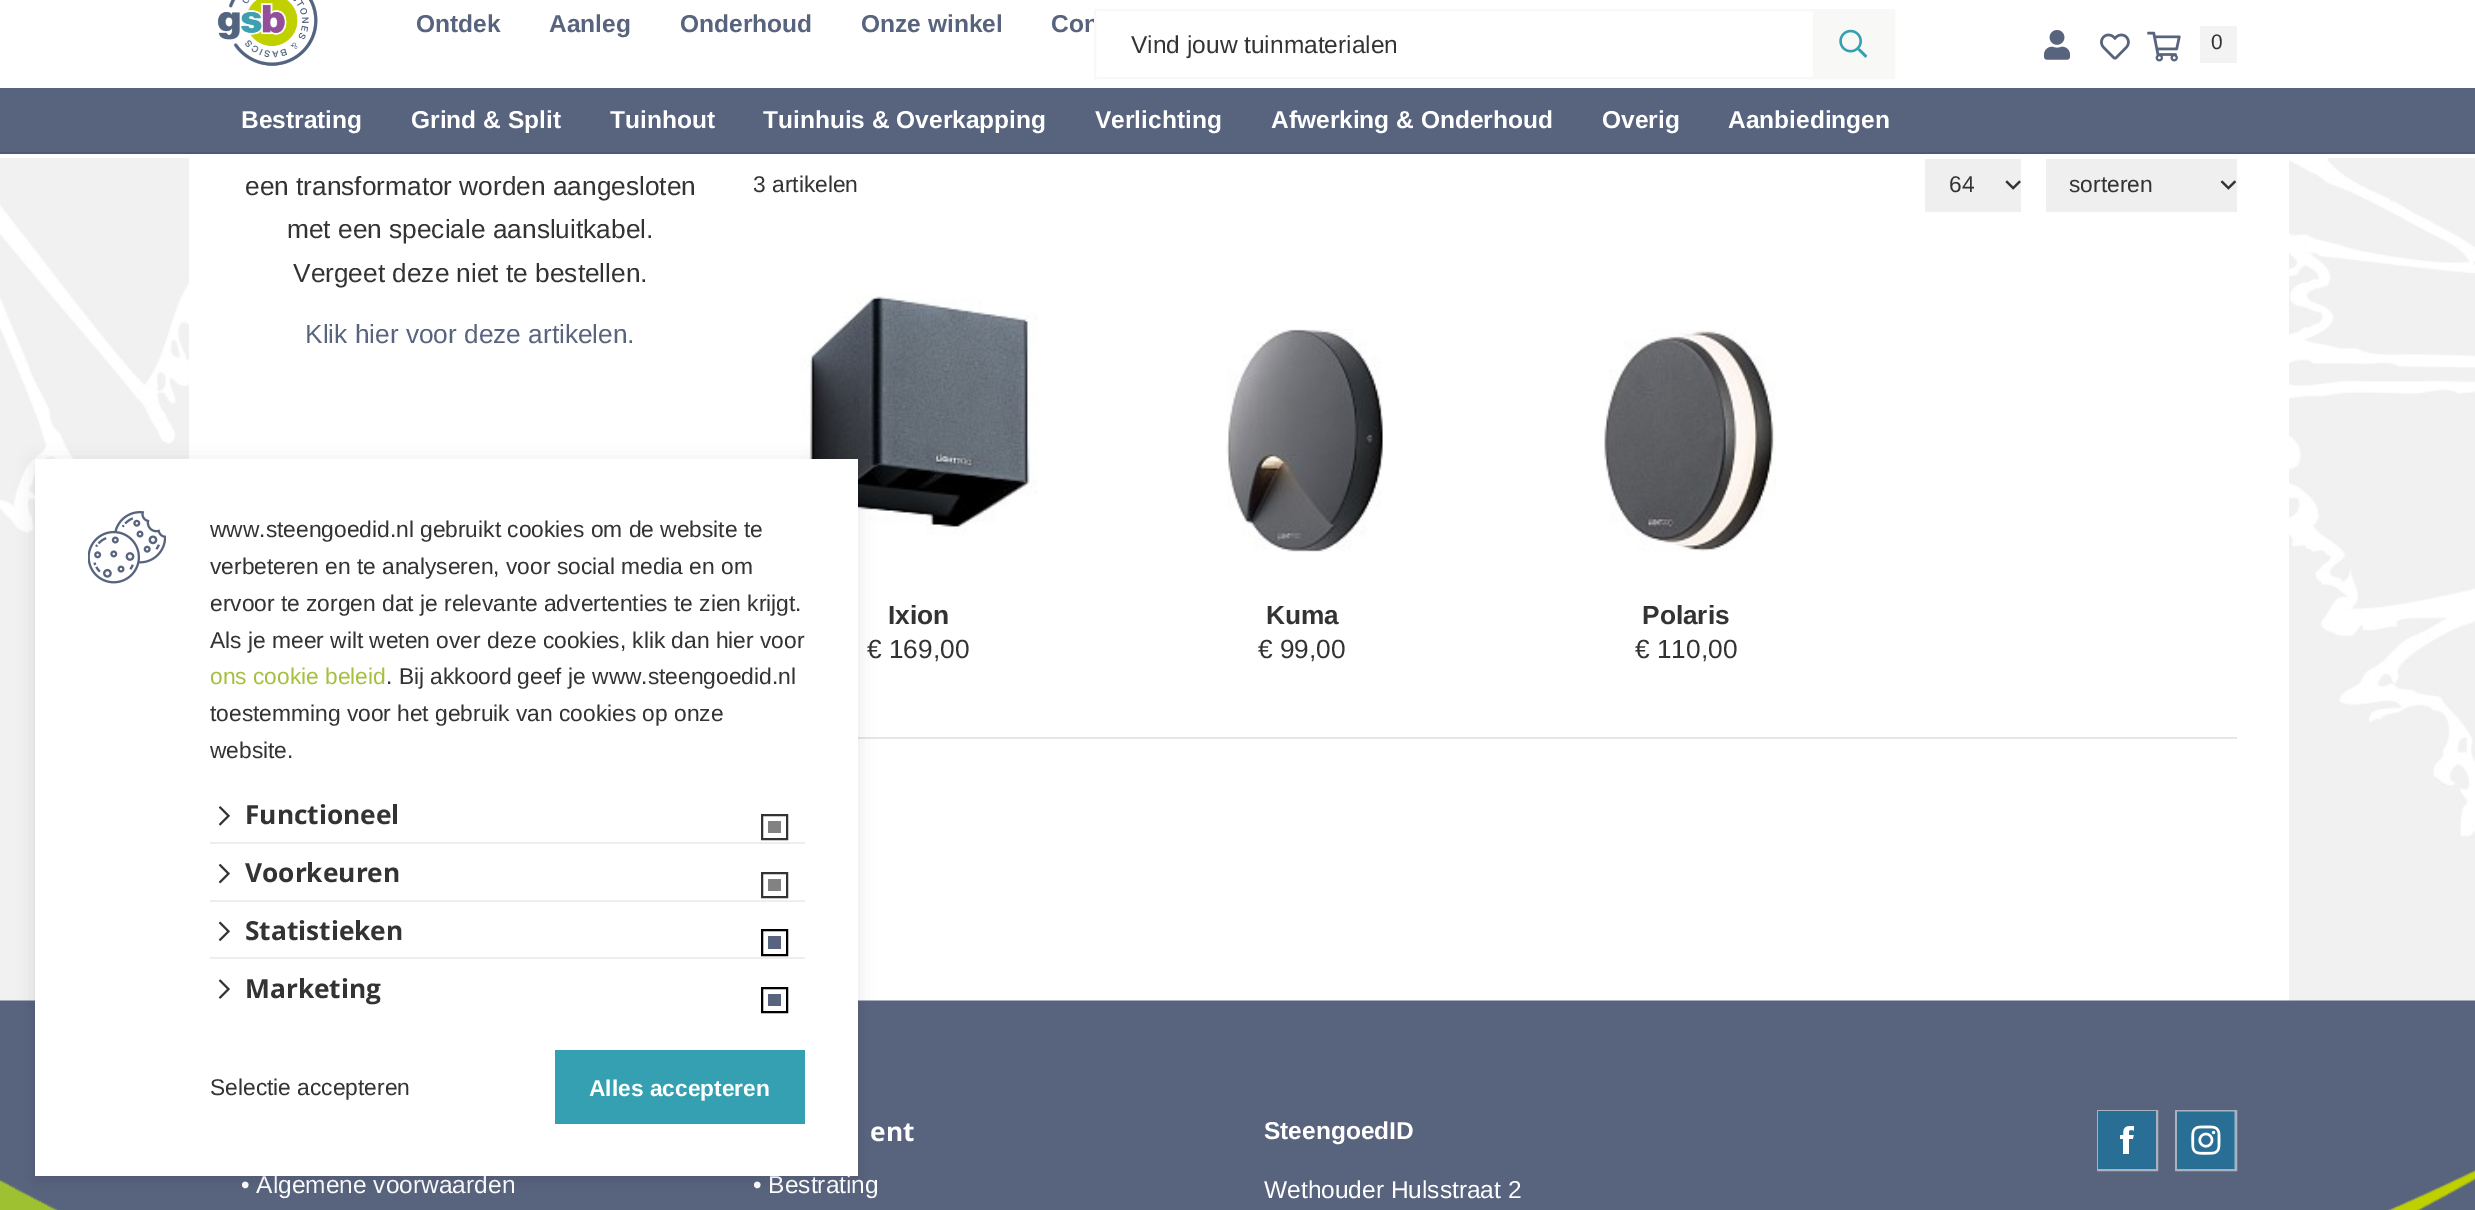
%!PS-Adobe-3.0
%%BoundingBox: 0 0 2475 1210
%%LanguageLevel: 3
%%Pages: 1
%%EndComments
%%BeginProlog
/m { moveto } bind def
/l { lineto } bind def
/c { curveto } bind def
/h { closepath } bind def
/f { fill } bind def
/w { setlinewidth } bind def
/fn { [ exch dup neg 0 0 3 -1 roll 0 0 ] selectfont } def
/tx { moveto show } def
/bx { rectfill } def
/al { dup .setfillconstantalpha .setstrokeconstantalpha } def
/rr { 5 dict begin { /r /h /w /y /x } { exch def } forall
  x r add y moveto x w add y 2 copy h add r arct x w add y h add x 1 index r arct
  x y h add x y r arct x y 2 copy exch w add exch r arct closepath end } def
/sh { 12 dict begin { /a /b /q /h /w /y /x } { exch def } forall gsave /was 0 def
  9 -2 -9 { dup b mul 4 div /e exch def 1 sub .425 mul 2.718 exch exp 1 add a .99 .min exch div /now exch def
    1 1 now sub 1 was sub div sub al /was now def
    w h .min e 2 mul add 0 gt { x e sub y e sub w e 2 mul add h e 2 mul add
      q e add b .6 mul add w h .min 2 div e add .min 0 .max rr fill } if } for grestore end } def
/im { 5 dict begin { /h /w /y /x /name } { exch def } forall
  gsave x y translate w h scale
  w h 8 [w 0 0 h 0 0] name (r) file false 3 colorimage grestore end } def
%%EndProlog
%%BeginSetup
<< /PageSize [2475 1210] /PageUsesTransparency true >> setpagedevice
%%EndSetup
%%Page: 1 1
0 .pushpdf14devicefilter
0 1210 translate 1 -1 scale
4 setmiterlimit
1 setgray
0 0 2475 1210 bx
(image0.raw) 0 158 2475 843 im
(image1.raw) 217 0 101 66 im
/LiberationSans-Bold 24.5 fn
0.345 0.388 0.494 setrgbcolor
(Ontdek) 416 32 tx
(Aanleg) 549 32 tx
(Onderhoud) 680 32 tx
(Onze winkel) 861 32 tx
(Con) 1051 32 tx
1 setgray
1096 19 2 13 bx
0.973 0.973 0.969 setrgbcolor
2 w
1095 10 799 68 rectstroke
/LiberationSans-Regular 24.5 fn
0.2 setgray
(Vind jouw tuinmaterialen) 1131 53 tx
0.973 0.973 0.969 setrgbcolor
1813 11 80 66 bx
(image2.raw) 1839 29 29 29 im
(image3.raw) 2044 30 27 30 im
(image4.raw) 2100 33 30 27 im
(image5.raw) 2147 31 34 31 im
0.953 setgray
2200 26 37 37 bx
/LiberationSans-Regular 21 fn
0.2 setgray
(0) 2211 49 tx
0.345 0.388 0.494 setrgbcolor
0 88 2475 64 bx
0.31 0.349 0.443 setrgbcolor
0 152 2475 2 bx
/LiberationSans-Bold 24.5 fn
1 setgray
(Bestrating) 241 128 tx
(Grind & Split) 411 128 tx
(Tuinhout) 610 128 tx
(Tuinhuis & Overkapping) 763 128 tx
(Verlichting) 1095 128 tx
(Afwerking & Onderhoud) 1271 128 tx
(Overig) 1602 128 tx
(Aanbiedingen) 1728 128 tx
189 158 2100 843 bx
/LiberationSans-Regular 26.25 fn
0.2 setgray
(een transformator worden aangesloten) 245 195 tx
(met een speciale aansluitkabel.) 287 238 tx
(Vergeet deze niet te bestellen.) 293 282 tx
0.345 0.388 0.494 setrgbcolor
(Klik hier voor deze artikelen.) 305 343 tx
/LiberationSans-Regular 22.75 fn
0.2 setgray
(3 artikelen) 753 192 tx
0.937 setgray
1925 159 96 53 bx
0.2 setgray
(64) 1949 192 tx
(image6.raw) 2005 180 16 10 im
0.937 setgray
2046 159 191 53 bx
0.2 setgray
(sorteren) 2069 192 tx
(image7.raw) 2220 180 16 10 im
(image8.raw) 800 294 238 241 im
/LiberationSans-Bold 26.25 fn
(Ixion) 888 624 tx
/LiberationSans-Regular 26.25 fn
(€ 169,00) 867 658 tx
(image9.raw) 1226 329 158 223 im
/LiberationSans-Bold 26.25 fn
(Kuma) 1266 624 tx
/LiberationSans-Regular 26.25 fn
(€ 99,00) 1258 658 tx
(image10.raw) 1604 329 172 223 im
/LiberationSans-Bold 26.25 fn
(Polaris) 1642 624 tx
/LiberationSans-Regular 26.25 fn
(€ 110,00) 1635 658 tx
0.902 setgray
858 737 1379 2 bx
(image11.raw) 0 1000 2475 210 im
/LiberationSans-Regular 24.5 fn
1 setgray
(• Algemene voorwaarden) 241 1193 tx
/OpenSans-Bold 26.25 fn
(ent) 870 1141 tx
/LiberationSans-Regular 24.5 fn
(• Bestrating) 753 1193 tx
/LiberationSans-Bold 24.5 fn
(SteengoedID) 1264 1139 tx
/LiberationSans-Regular 24.5 fn
(Wethouder Hulsstraat 2) 1264 1198 tx
0.675 0.694 0.749 setrgbcolor
2098 1111 59 59 rectstroke
1 setgray
2120 1126 14 28 bx
0.161 0.431 0.584 setrgbcolor
2098 1111 m 2098 1169 l 2156 1169 l 2156 1111 l h 2134 1135 m 2133 1139 l 2129 1139 l 2129 1154 l 2123 1154 l 2123 1139 l 2120 1139 l 2120 1135 l 2123 1135 l 2123 1131 2123 1126 2129 1126 c 2134 1126 l 2134 1131 l 2129 1129 2129 1131 2129 1135 c h f
0.675 0.694 0.749 setrgbcolor
2176 1111 60 59 rectstroke
1 setgray
2177 1111 58 58 bx
(image12.raw) 2177 1111 58 58 im
0 setgray
35 462 823 718 0 9 0.1 sh
1 setgray
35 459 823 717 bx
(image13.raw) 88 511 78 73 im
/LiberationSans-Regular 22.75 fn
0.2 setgray
(www.steengoedid.nl gebruikt cookies om de website te) 210 537 tx
(verbeteren en te analyseren, voor social media en om) 210 574 tx
(ervoor te zorgen dat je relevante advertenties te zien krijgt.) 210 611 tx
(Als je meer wilt weten over deze cookies, klik dan hier voor) 210 648 tx
0.651 0.749 0.251 setrgbcolor
(ons cookie beleid) 210 684 tx
0.2 setgray
(. Bij akkoord geef je www.steengoedid.nl) 386 684 tx
(toestemming voor het gebruik van cookies op onze) 210 721 tx
(website.) 210 758 tx
(image14.raw) 218 806 12 20 im
/OpenSans-Bold 26.25 fn
(Functioneel) 245 824 tx
762 815 25 24 rectstroke
0.51 setgray
768 821 13 12 bx
0.933 setgray
210 842 595 2 bx
(image15.raw) 218 863 12 21 im
0.2 setgray
(Voorkeuren) 245 882 tx
762 873 25 24 rectstroke
0.51 setgray
768 879 13 12 bx
0.933 setgray
210 900 595 2 bx
(image16.raw) 218 921 12 20 im
0.2 setgray
(Statistieken) 245 940 tx
0 setgray
762 930 25 25 rectstroke
0.345 0.388 0.494 setrgbcolor
768 936 13 13 bx
0.933 setgray
210 957 595 2 bx
(image17.raw) 218 979 12 20 im
0.2 setgray
(Marketing) 245 998 tx
0 setgray
762 988 25 24 rectstroke
0.345 0.388 0.494 setrgbcolor
768 994 13 12 bx
/LiberationSans-Regular 22.75 fn
0.2 setgray
(Selectie accepteren) 210 1095 tx
0.204 0.627 0.694 setrgbcolor
555 1050 250 74 bx
/LiberationSans-Bold 22.75 fn
1 setgray
(Alles accepteren) 589 1096 tx
.poppdf14devicefilter showpage
%%EOF
